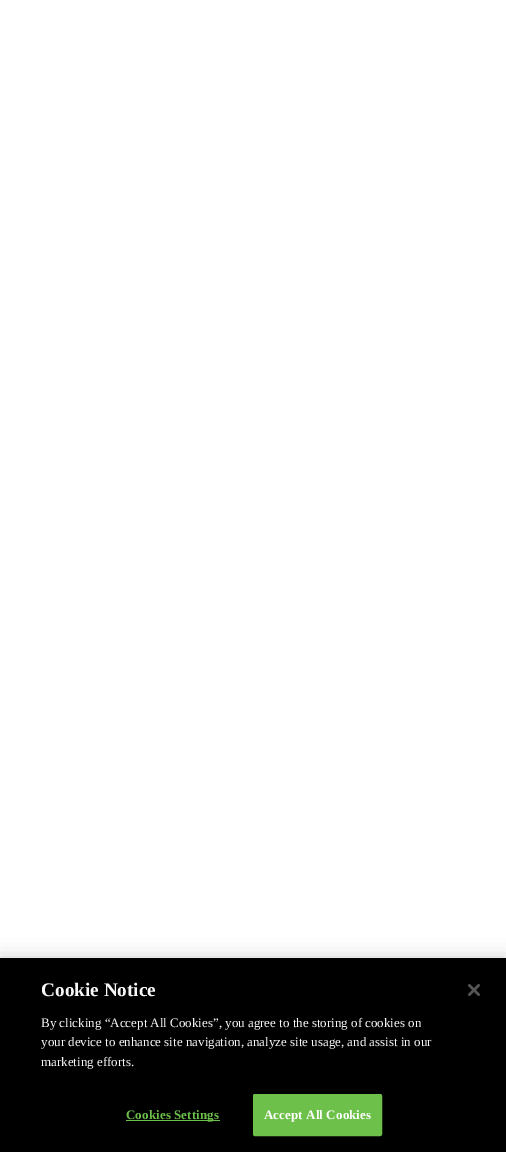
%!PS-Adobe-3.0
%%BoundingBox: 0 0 506 1152
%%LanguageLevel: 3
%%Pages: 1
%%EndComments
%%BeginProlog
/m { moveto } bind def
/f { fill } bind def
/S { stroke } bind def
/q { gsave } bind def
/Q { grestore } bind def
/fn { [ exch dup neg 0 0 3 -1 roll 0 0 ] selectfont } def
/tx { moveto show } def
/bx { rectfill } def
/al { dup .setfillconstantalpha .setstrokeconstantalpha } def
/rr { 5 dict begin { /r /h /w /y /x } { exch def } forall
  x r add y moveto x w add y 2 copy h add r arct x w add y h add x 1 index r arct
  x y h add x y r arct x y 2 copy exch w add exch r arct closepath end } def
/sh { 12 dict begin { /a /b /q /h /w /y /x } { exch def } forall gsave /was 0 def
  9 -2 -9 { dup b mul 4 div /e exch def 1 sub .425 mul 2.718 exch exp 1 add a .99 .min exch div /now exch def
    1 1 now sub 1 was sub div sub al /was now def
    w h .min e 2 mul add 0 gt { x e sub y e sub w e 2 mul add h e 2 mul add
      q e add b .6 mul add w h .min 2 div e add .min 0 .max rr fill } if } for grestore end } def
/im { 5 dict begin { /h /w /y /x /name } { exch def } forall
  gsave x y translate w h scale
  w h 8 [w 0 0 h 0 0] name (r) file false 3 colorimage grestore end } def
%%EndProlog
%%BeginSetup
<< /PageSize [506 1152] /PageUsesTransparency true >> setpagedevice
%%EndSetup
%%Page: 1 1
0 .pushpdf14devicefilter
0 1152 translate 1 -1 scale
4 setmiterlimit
1 setgray
0 0 506 1152 bx
0 setgray
0 958 506 194 0 9 0.2 sh
0 958 506 194 bx
/LiberationSerif-Bold 19.25 fn
0.973 setgray
(Cookie Notice) 41 996 tx
/LiberationSerif-Regular 13 fn
(By clicking “Accept All Cookies”, you agree to the storing of cookies on) 41 1027 tx
(your device to enhance site navigation, analyze site usage, and assist in our) 41 1046 tx
(marketing efforts.) 41 1066 tx
0.424 0.753 0.29 setrgbcolor
126 1120 94 1 bx
/LiberationSerif-Bold 13 fn
126 1119 m 0.1 0 (Cookies Settings) ashow
0.427 0.753 0.29 setrgbcolor
253.5 1094.5 128 41 1.5 rr q f Q
S
1 setgray
264 1119 m 0.1 0 (Accept All Cookies) ashow
(image0.raw) 468 984 12 12 im
.poppdf14devicefilter showpage
%%EOF
